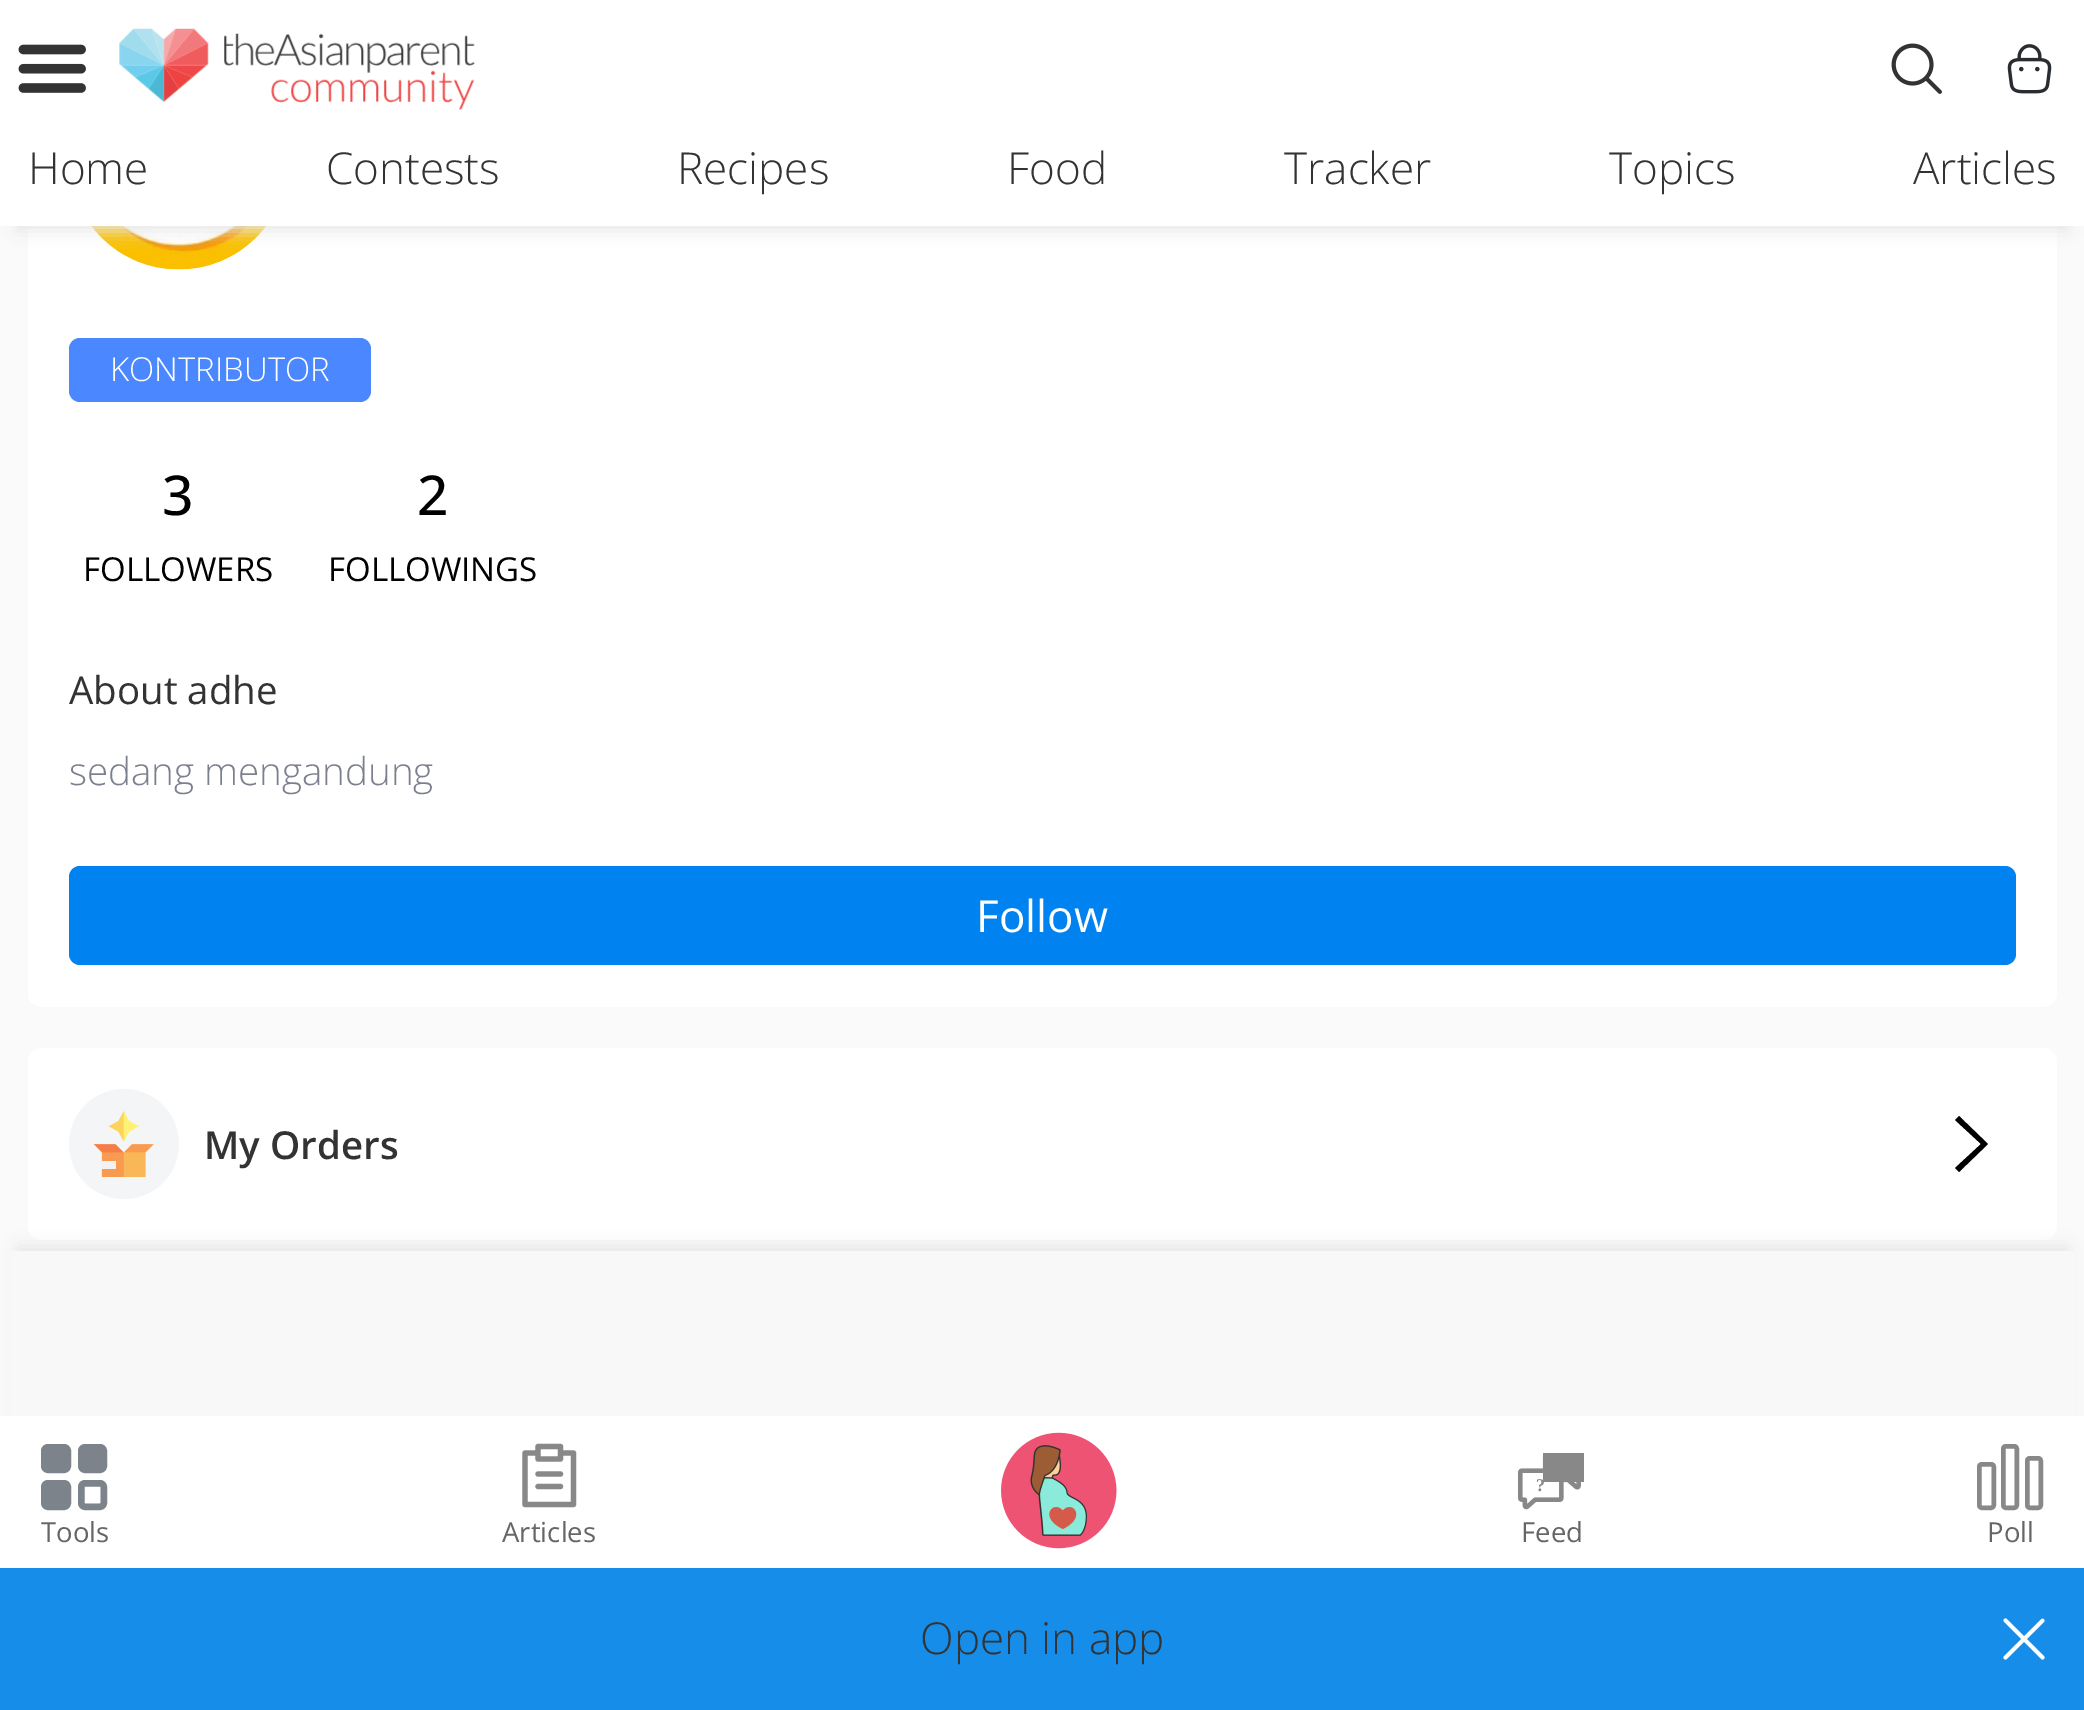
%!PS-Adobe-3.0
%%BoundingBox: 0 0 2084 1710
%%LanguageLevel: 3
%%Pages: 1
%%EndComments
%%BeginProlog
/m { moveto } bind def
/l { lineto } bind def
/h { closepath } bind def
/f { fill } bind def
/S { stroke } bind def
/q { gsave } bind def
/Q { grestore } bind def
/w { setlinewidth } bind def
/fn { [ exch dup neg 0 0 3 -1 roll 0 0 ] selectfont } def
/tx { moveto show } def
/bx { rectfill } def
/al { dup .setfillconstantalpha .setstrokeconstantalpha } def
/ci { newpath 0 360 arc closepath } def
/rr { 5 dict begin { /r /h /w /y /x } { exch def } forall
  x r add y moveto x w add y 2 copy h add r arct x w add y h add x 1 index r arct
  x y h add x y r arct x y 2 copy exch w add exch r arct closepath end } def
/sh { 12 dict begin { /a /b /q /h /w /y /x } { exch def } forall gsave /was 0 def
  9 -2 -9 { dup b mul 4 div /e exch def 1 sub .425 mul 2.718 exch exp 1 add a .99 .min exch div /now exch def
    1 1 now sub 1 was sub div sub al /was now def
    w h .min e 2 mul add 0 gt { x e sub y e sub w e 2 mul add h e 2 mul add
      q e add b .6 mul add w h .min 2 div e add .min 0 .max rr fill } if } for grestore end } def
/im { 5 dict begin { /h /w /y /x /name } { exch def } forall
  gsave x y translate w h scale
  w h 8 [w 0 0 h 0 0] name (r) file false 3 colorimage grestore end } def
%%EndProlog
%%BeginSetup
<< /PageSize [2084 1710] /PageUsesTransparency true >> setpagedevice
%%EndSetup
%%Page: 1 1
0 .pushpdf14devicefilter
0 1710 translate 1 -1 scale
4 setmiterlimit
0.98 setgray
0 0 2084 1710 bx
1 setgray
28 8 2029 999 14 rr f
(image4.raw) 91 226 175 44 im
0.906 setgray
17 39 2051 192 0 8 1 sh
1 setgray
0 0 2084 226 bx
(image0.raw) 18 44 68 49 im
(image1.raw) 119 28 356 82 im
(image2.raw) 1891 43 51 51 im
(image3.raw) 2007 44 45 50 im
/OpenSans-Light 44 fn
0.2 setgray
(Home) 28 184 tx
(Contests) 326 184 tx
(Recipes) 677 184 tx
(Food) 1007 184 tx
(Tracker) 1284 184 tx
(Topics) 1609 184 tx
(Articles) 1913 184 tx
0.294 0.529 1 setrgbcolor
69 338 302 64 11 rr f
/OpenSans-Light 33 fn
1 setgray
(KONTRIBUTOR) 110 381 tx
/OpenSans-Medium 55 fn
0 setgray
(3) 162 515 tx
/OpenSans-Regular 33 fn
(FOLLOWERS) 83 581 tx
/OpenSans-Medium 55 fn
(2) 417 515 tx
/OpenSans-Regular 33 fn
(FOLLOWINGS) 328 581 tx
/OpenSans-Regular 38.5 fn
0.2 setgray
(About adhe) 69 704 tx
/OpenSans-Light 38.5 fn
0.486 0.502 0.557 setrgbcolor
(sedang mengandung) 69 785 tx
0.004 0.51 0.945 setrgbcolor
69 866 1947 99 11 rr f
/OpenSans-Regular 44 fn
1 setgray
(Follow) 976 932 tx
28 1048 2029 192 14 rr f
0.957 0.961 0.969 setrgbcolor
124 1144 55 ci f
(image5.raw) 93 1111 61 66 im
/OpenSans-SemiBold 38.5 fn
0.2 setgray
(My Orders) 204 1159 tx
0 setgray
1955 1120 m 1959 1116 l 1988 1144 l 1959 1172 l 1955 1168 l 1981 1144 l h f
0.906 setgray
17 1246 2051 426 0 8 1 sh
0.973 setgray
11 1251 2063 165 bx
1 setgray
0 1416 2084 152 bx
0.486 0.514 0.545 setrgbcolor
44.25 1447.25 23.5 22.5 3.75 rr q f Q
6.5 w
S
81.25 1447.25 22.5 22.5 3.75 rr q f Q
S
44.25 1483.25 23.5 23.5 3.75 rr q f Q
S
81.25 1483.25 22.5 23.5 3.75 rr S
/OpenSans-Regular 27.5 fn
0.4 setgray
(Tools) 41 1542 tx
0.533 setgray
5.3 w
1 setlinecap
1 setlinejoin
537 1453 m 525 1453 l 525 1504.5 l 573.5 1504.5 l 573.5 1453 l 561 1453 l 538 1474 m 560.5 1474 l 538 1486.5 m 560.5 1486.5 l S
538 1446.5 m 538 1459 l 560.5 1459 l 560.5 1446.5 l h S
0.4 setgray
(Articles) 502 1542 tx
(image6.raw) 1001 1432 116 117 im
(image7.raw) 1518 1453 66 57 im
/LiberationSerif-Bold 18 fn
0.533 setgray
(?) 1536 1491 tx
/OpenSans-Regular 27.5 fn
0.4 setgray
(Feed) 1521 1542 tx
0.533 setgray
4.5 w
0 setlinecap
0 setlinejoin
1979.25 1464.25 14.5 43.5 2.75 rr S
2003.25 1446.25 13.5 61.5 2.75 rr S
2027.25 1458.25 13.5 49.5 2.75 rr S
0.4 setgray
(Poll) 1987 1542 tx
0.086 0.553 0.914 setrgbcolor
0 1568 2084 142 bx
/OpenSans-Light 44 fn
0.2 setgray
(Open in app) 920 1654 tx
(image8.raw) 2003 1618 42 42 im
.poppdf14devicefilter showpage
%%EOF
